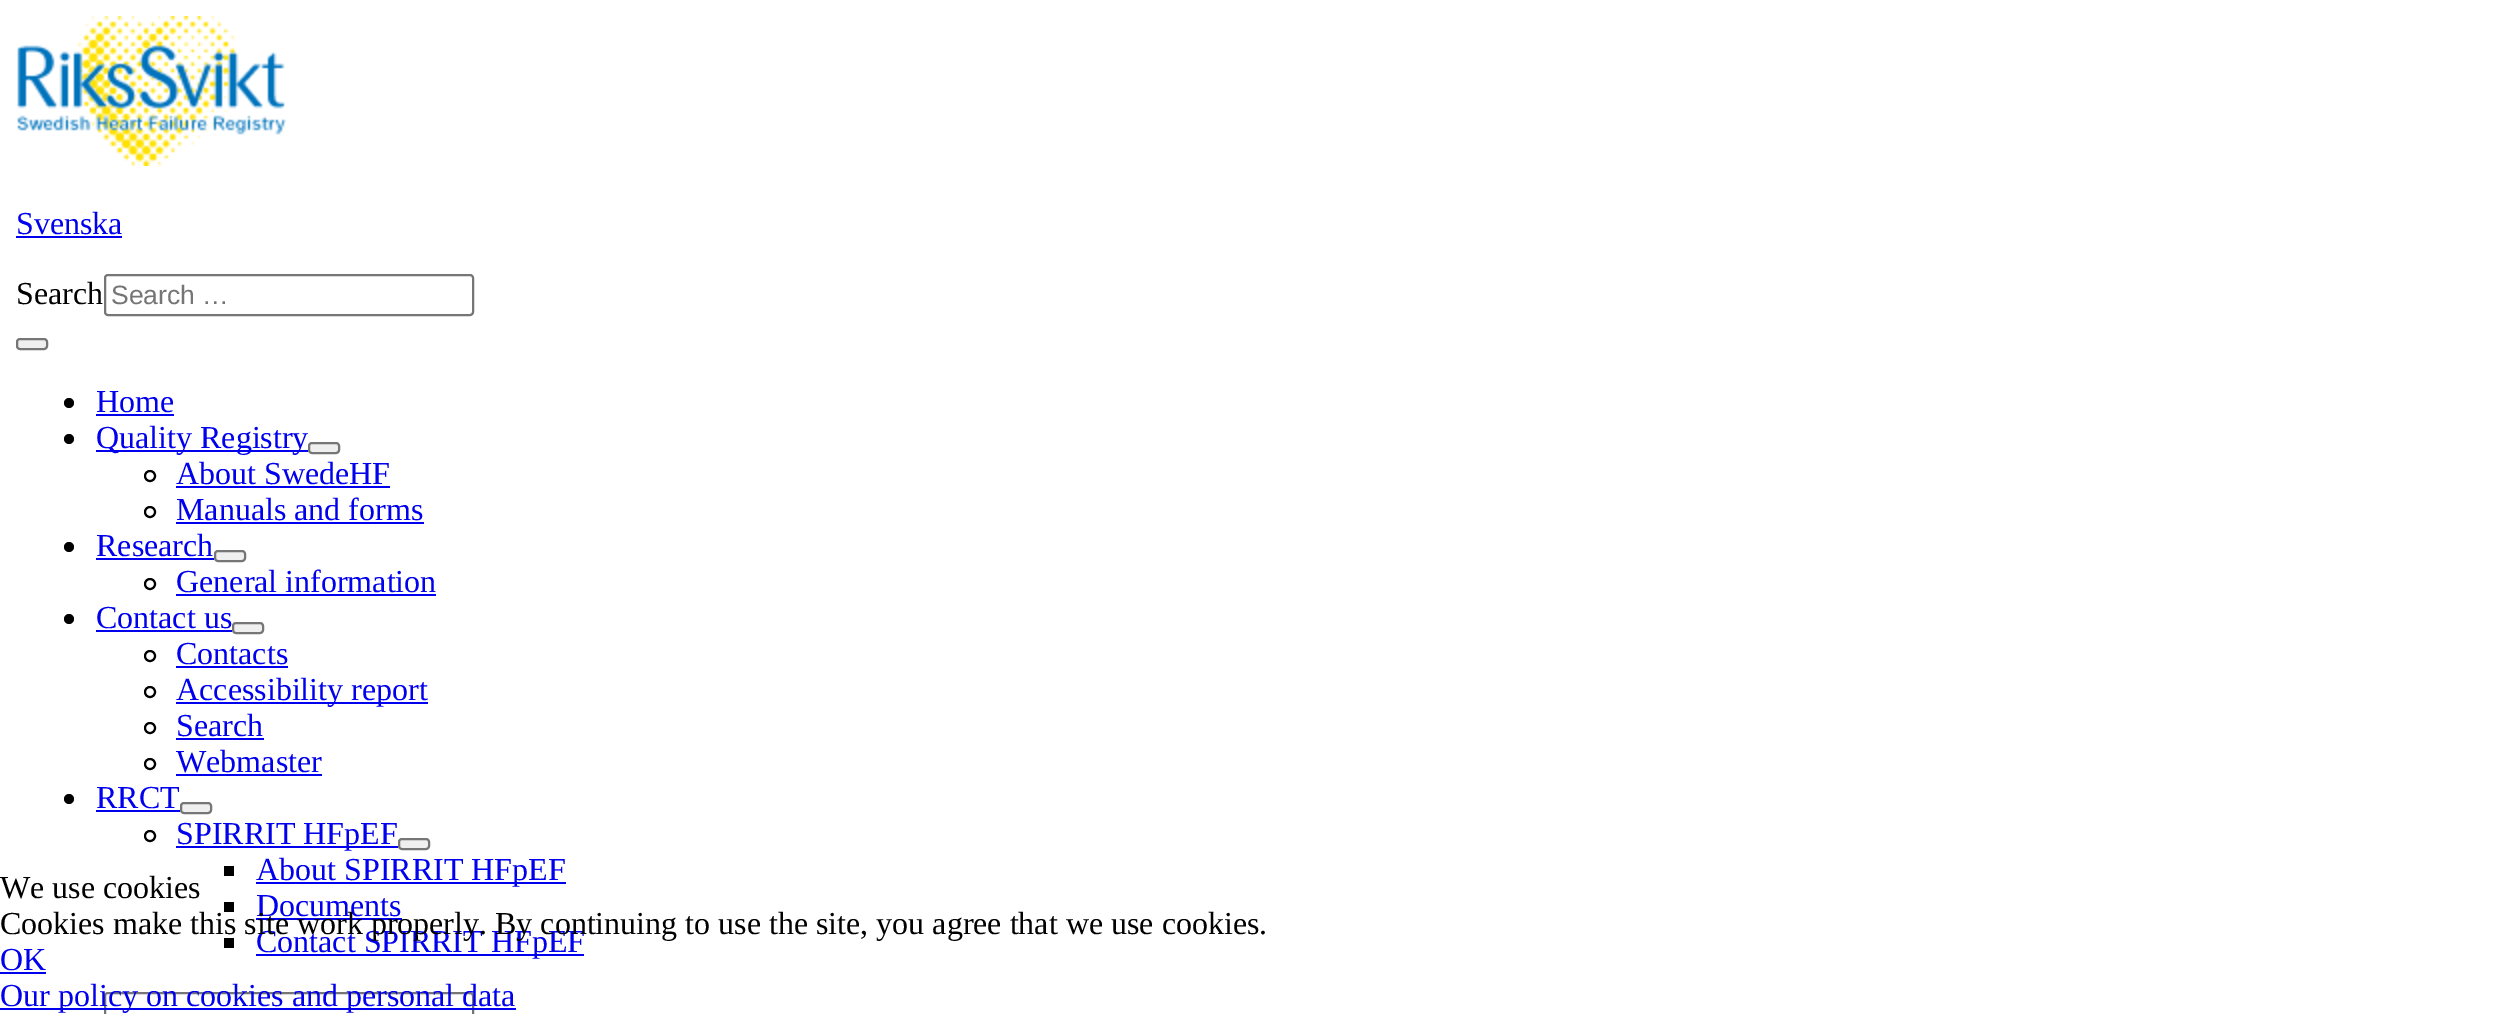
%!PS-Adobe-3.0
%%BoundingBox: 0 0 2512 1014
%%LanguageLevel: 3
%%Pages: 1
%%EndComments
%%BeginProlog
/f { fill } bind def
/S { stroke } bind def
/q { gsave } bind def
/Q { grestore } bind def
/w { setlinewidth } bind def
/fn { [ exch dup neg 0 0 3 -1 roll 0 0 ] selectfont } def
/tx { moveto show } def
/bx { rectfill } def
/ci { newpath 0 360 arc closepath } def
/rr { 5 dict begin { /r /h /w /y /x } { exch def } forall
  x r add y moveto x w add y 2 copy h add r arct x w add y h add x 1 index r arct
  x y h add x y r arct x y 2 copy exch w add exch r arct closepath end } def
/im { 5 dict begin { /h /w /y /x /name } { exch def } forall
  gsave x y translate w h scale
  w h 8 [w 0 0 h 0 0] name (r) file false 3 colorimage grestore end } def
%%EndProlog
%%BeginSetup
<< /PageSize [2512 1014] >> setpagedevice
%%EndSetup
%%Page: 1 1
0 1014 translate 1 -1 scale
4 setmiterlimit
1 setgray
0 0 2512 1014 bx
(image0.raw) 17 16 269 150 im
/LiberationSerif-Regular 32 fn
0 0 0.933 setrgbcolor
(Svenska) 16 234 tx
16 236 106 2 bx
0 setgray
(Search) 16 304 tx
0.463 setgray
2 w
105 275 368 40 3 rr S
/LiberationSans-Regular 26.5 fn
0.459 setgray
(Search …) 111 304 tx
0.937 setgray
17 339 30 10 3 rr q f Q
0.463 setgray
S
0 setgray
69 403 5 ci f
/LiberationSerif-Regular 32 fn
0 0 0.933 setrgbcolor
(Home) 96 412 tx
96 414 78 2 bx
0 setgray
69 439 5 ci f
0 0 0.933 setrgbcolor
96 450 212 2 bx
(Quality Registry) 96 448 tx
0.937 setgray
309 443 30 10 3 rr q f Q
0.463 setgray
S
0 setgray
150 476 5 ci S
0 0 0.933 setrgbcolor
(About SwedeHF) 176 484 tx
176 486 214 2 bx
0 setgray
150 512 5 ci S
0 0 0.933 setrgbcolor
(Manuals and forms) 176 520 tx
176 522 248 2 bx
0 setgray
69 547 5 ci f
0 0 0.933 setrgbcolor
(Research) 96 556 tx
96 558 118 2 bx
0.937 setgray
215 551 30 10 3 rr q f Q
0.463 setgray
S
0 setgray
150 584 5 ci S
0 0 0.933 setrgbcolor
(General information) 176 592 tx
176 594 260 2 bx
0 setgray
69 619 5 ci f
0 0 0.933 setrgbcolor
(Contact us) 96 628 tx
96 630 136 2 bx
0.937 setgray
233 623 30 10 3 rr q f Q
0.463 setgray
S
0 setgray
150 656 5 ci S
0 0 0.933 setrgbcolor
(Contacts) 176 664 tx
176 666 112 2 bx
0 setgray
150 692 5 ci S
0 0 0.933 setrgbcolor
176 702 252 2 bx
(Accessibility report) 176 700 tx
0 setgray
150 728 5 ci S
0 0 0.933 setrgbcolor
(Search) 176 736 tx
176 738 88 2 bx
0 setgray
150 764 5 ci S
0 0 0.933 setrgbcolor
(Webmaster) 176 772 tx
176 774 146 2 bx
0 setgray
69 799 5 ci f
0 0 0.933 setrgbcolor
(RRCT) 96 808 tx
96 810 84 2 bx
0.937 setgray
181 803 30 10 3 rr q f Q
0.463 setgray
S
0 setgray
150 836 5 ci S
0 0 0.933 setrgbcolor
176 846 222 2 bx
(SPIRRIT HFpEF) 176 844 tx
0.937 setgray
399 839 30 10 3 rr q f Q
0.463 setgray
S
0 setgray
224 866 10 10 bx
0 0 0.933 setrgbcolor
256 882 310 2 bx
(About SPIRRIT HFpEF) 256 880 tx
0 setgray
224 902 10 10 bx
0 0 0.933 setrgbcolor
(Documents) 256 916 tx
256 918 146 2 bx
0 setgray
224 938 10 10 bx
0 0 0.933 setrgbcolor
256 954 328 2 bx
(Contact SPIRRIT HFpEF) 256 952 tx
0.463 setgray
105 993 368 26 3 rr S
0 setgray
(We use cookies) 0 898 tx
(Cookies make this site work properly. By continuing to use the site, you agree that we use cookies.) 0 934 tx
0 0 0.933 setrgbcolor
(OK) 0 970 tx
0 972 46 2 bx
0 1008 516 2 bx
(Our policy on cookies and personal data) 0 1006 tx
showpage
%%EOF
